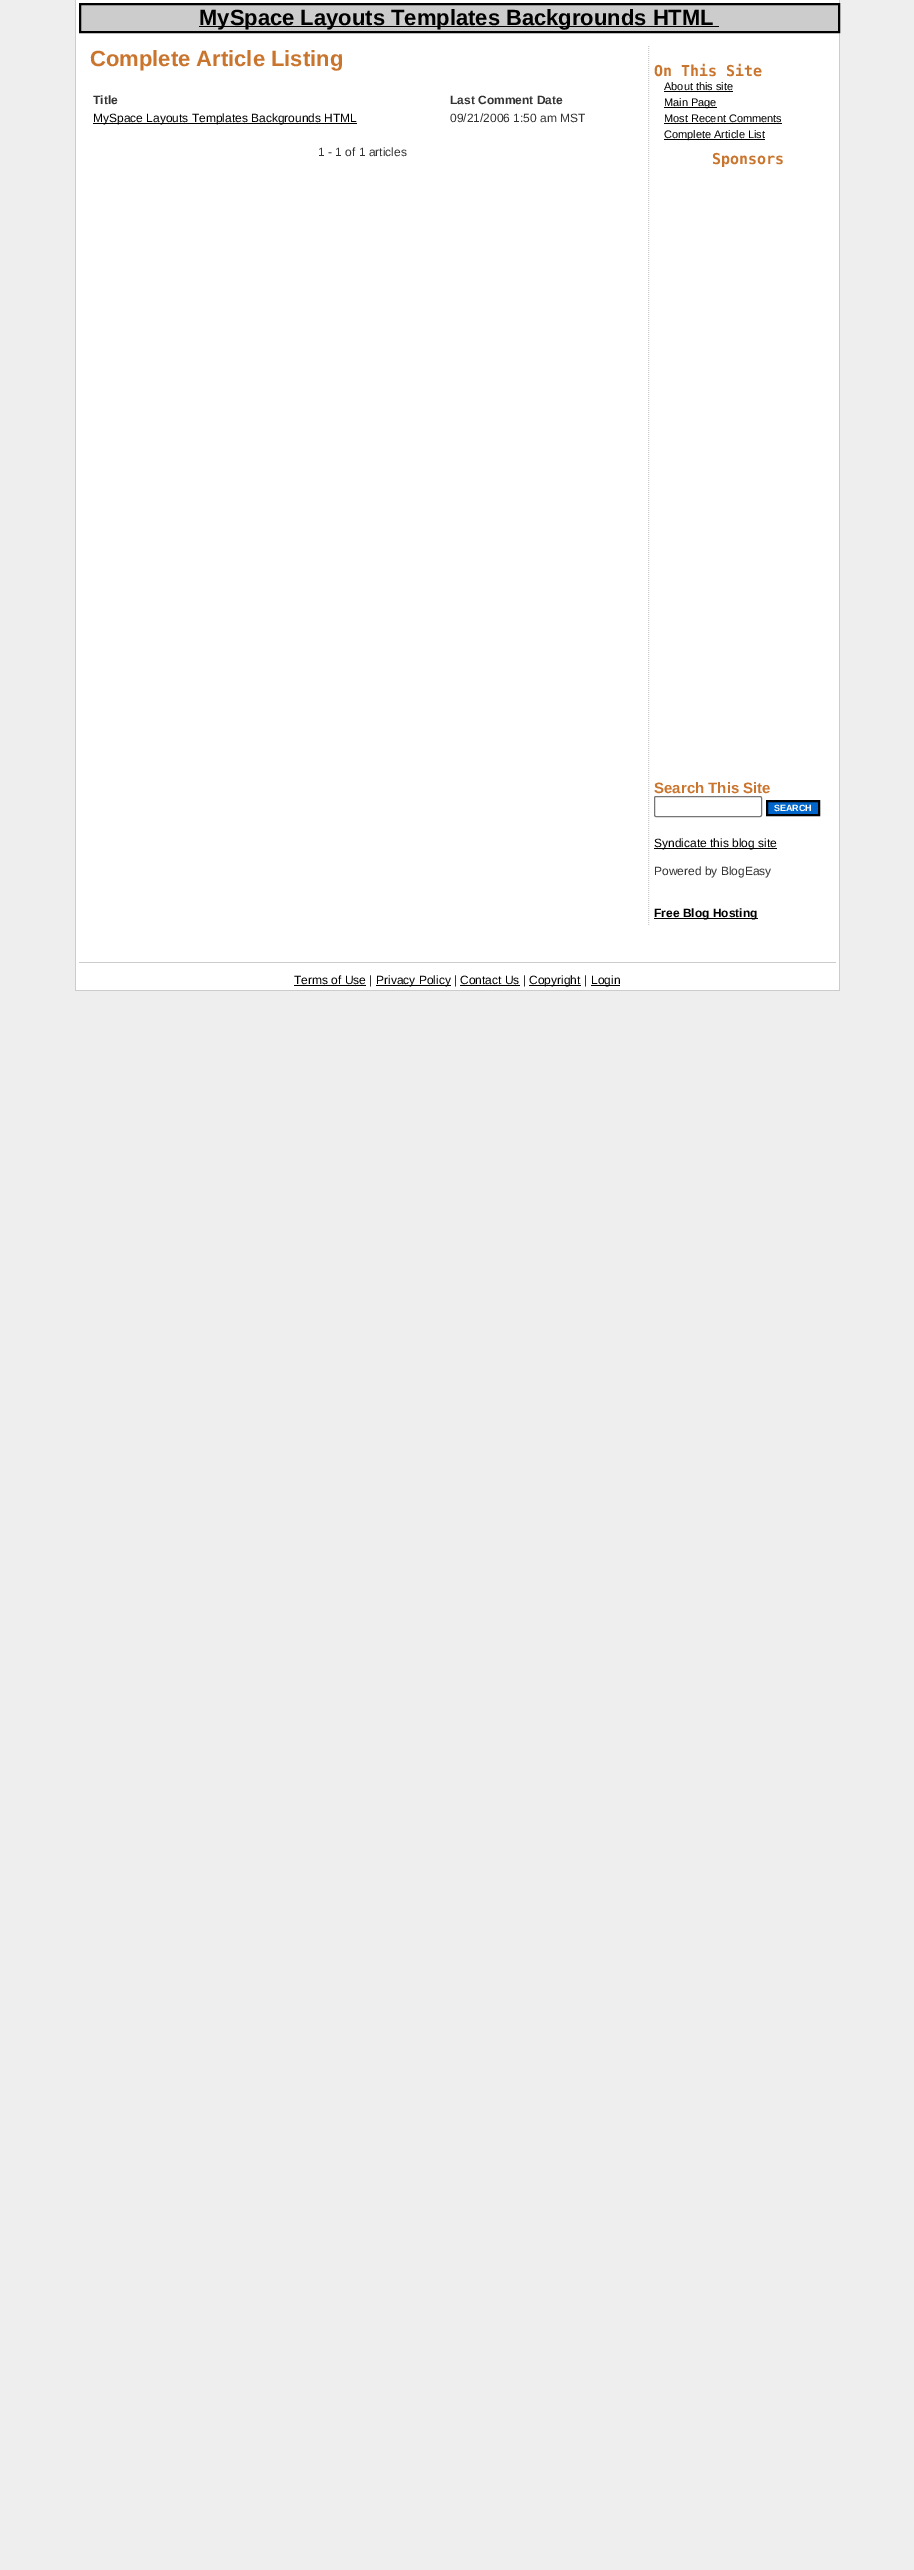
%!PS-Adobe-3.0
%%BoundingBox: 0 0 914 2570
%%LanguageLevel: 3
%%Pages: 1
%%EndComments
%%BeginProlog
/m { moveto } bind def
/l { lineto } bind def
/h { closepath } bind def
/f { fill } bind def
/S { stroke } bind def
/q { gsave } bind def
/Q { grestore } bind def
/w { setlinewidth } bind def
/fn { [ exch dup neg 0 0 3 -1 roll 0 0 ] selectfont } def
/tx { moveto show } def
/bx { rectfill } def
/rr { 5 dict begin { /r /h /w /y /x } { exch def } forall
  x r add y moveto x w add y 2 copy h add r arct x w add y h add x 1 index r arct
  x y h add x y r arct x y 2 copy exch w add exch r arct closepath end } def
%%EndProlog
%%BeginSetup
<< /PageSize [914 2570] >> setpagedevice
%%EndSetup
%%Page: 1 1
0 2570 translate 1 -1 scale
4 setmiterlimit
0.933 setgray
0 0 914 2570 bx
1 setgray
76 0 763 990 bx
0.8 setgray
839 0 1 991 bx
75 990 765 1 bx
75 0 1 991 bx
80 4 m 839 4 l 839 32 l 80 32 l h q f Q
0 setgray
2 w
S
199 26 520 1 bx
/LiberationSans-Bold 22 fn
(MySpace Layouts Templates Backgrounds HTML) 199 25 tx
0.792 0.459 0.176 setrgbcolor
(Complete Article Listing) 90 66 tx
/LiberationSans-Bold 12 fn
0.2 setgray
(Title) 93 104 tx
(Last Comment Date) 450 104 tx
0 setgray
93 123 264 1 bx
/LiberationSans-Regular 12 fn
(MySpace Layouts Templates Backgrounds HTML) 93 122 tx
0.2 setgray
(09/21/2006 1:50 am MST) 450 122 tx
(1 - 1 of 1 articles) 318 156 tx
0.8 setgray
1 w
[1 1] 0 setdash
648.5 46 m 648.5 925 l S
/DejaVuSansMono-Bold 15 fn
0.792 0.459 0.176 setrgbcolor
(On This Site) 654 76 tx
/LiberationSans-Regular 11 fn
0 setgray
(About this site) 664 90 tx
664 91 69 1 bx
664 107 53 1 bx
(Main Page) 664 106 tx
(Most Recent Comments) 664 122 tx
664 123 118 1 bx
664 139 101 1 bx
(Complete Article List) 664 138 tx
/DejaVuSansMono-Bold 15 fn
0.792 0.459 0.176 setrgbcolor
(Sponsors) 712 164 tx
/LiberationSans-Bold 15 fn
(Search This Site) 654 793 tx
0.463 setgray
[] 0 setdash
654.5 796.5 107 20 1.5 rr S
0 0.4 0.8 setrgbcolor
767 801 m 819 801 l 819 815 l 767 815 l h q f Q
0 setgray
2 w
S
/LiberationSans-Bold 9 fn
1 setgray
(SEARCH) 774 811 tx
0 setgray
654 848 123 1 bx
/LiberationSans-Regular 12 fn
(Syndicate this blog site) 654 847 tx
0.2 setgray
(Powered by BlogEasy) 654 875 tx
0 setgray
654 918 104 1 bx
/LiberationSans-Bold 12 fn
(Free Blog Hosting) 654 917 tx
0.8 setgray
79 962 757 1 bx
/LiberationSans-Regular 12 fn
0 setgray
(Terms of Use) 294 984 tx
294 985 72 1 bx
0.2 setgray
(|) 369 984 tx
0 setgray
376 985 75 1 bx
(Privacy Policy) 376 984 tx
0.2 setgray
(|) 454 984 tx
0 setgray
(Contact Us) 460 984 tx
460 985 60 1 bx
0.2 setgray
(|) 523 984 tx
0 setgray
529 985 52 1 bx
(Copyright) 529 984 tx
0.2 setgray
(|) 584 984 tx
0 setgray
591 985 29 1 bx
(Login) 591 984 tx
showpage
%%EOF
